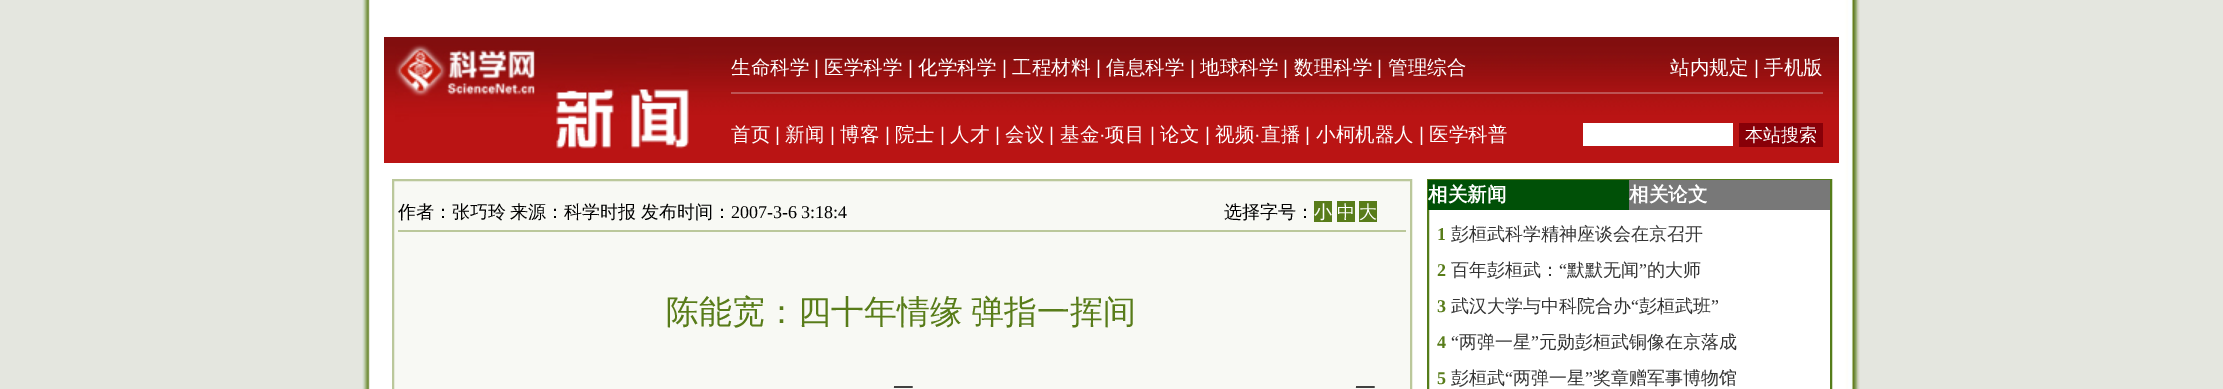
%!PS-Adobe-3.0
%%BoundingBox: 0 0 2223 389
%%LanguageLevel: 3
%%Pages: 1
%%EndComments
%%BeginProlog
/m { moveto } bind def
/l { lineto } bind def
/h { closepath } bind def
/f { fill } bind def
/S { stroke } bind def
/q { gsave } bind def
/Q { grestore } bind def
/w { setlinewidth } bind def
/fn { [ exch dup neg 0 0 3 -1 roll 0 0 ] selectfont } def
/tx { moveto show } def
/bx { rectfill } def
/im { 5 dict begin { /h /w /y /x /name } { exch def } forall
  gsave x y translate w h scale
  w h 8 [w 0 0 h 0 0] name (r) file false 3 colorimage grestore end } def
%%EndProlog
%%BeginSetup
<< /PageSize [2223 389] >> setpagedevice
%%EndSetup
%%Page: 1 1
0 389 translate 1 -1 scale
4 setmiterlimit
0.894 0.902 0.875 setrgbcolor
0 0 2223 389 bx
(image0.raw) 362 0 1498 389 im
(image1.raw) 384 37 1455 126 im
(image2.raw) 395 44 294 105 im
0.741 0.325 0.329 setrgbcolor
731 92 1092 2 bx
/WenQuanYiZenHei-Medium 19.5 fn
1 setgray
(生命科学) 731 74 tx
/LiberationSans-Regular 19.5 fn
(|) 814 74 tx
/WenQuanYiZenHei-Medium 19.5 fn
(医学科学) 824 74 tx
/LiberationSans-Regular 19.5 fn
(|) 908 74 tx
/WenQuanYiZenHei-Medium 19.5 fn
(化学科学) 918 74 tx
/LiberationSans-Regular 19.5 fn
(|) 1002 74 tx
/WenQuanYiZenHei-Medium 19.5 fn
(工程材料) 1012 74 tx
/LiberationSans-Regular 19.5 fn
(|) 1096 74 tx
/WenQuanYiZenHei-Medium 19.5 fn
(信息科学) 1106 74 tx
/LiberationSans-Regular 19.5 fn
(|) 1190 74 tx
/WenQuanYiZenHei-Medium 19.5 fn
(地球科学) 1200 74 tx
/LiberationSans-Regular 19.5 fn
(|) 1283 74 tx
/WenQuanYiZenHei-Medium 19.5 fn
(数理科学) 1294 74 tx
/LiberationSans-Regular 19.5 fn
(|) 1377 74 tx
/WenQuanYiZenHei-Medium 19.5 fn
(管理综合) 1388 74 tx
(站内规定) 1670 74 tx
/LiberationSans-Regular 19.5 fn
(|) 1754 74 tx
/WenQuanYiZenHei-Medium 19.5 fn
(手机版) 1764 74 tx
(首页) 731 141 tx
/LiberationSans-Regular 19.5 fn
(|) 775 141 tx
/WenQuanYiZenHei-Medium 19.5 fn
(新闻) 785 141 tx
/LiberationSans-Regular 19.5 fn
(|) 830 141 tx
/WenQuanYiZenHei-Medium 19.5 fn
(博客) 840 141 tx
/LiberationSans-Regular 19.5 fn
(|) 885 141 tx
/WenQuanYiZenHei-Medium 19.5 fn
(院士) 895 141 tx
/LiberationSans-Regular 19.5 fn
(|) 940 141 tx
/WenQuanYiZenHei-Medium 19.5 fn
(人才) 950 141 tx
/LiberationSans-Regular 19.5 fn
(|) 995 141 tx
/WenQuanYiZenHei-Medium 19.5 fn
(会议) 1005 141 tx
/LiberationSans-Regular 19.5 fn
(|) 1049 141 tx
/WenQuanYiZenHei-Medium 19.5 fn
(基金) 1060 141 tx
/LiberationSans-Regular 19.5 fn
(·) 1099 141 tx
/WenQuanYiZenHei-Medium 19.5 fn
(项目) 1105 141 tx
/LiberationSans-Regular 19.5 fn
(|) 1150 141 tx
/WenQuanYiZenHei-Medium 19.5 fn
(论文) 1160 141 tx
/LiberationSans-Regular 19.5 fn
(|) 1205 141 tx
/WenQuanYiZenHei-Medium 19.5 fn
(视频) 1215 141 tx
/LiberationSans-Regular 19.5 fn
(·) 1254 141 tx
/WenQuanYiZenHei-Medium 19.5 fn
(直播) 1261 141 tx
/LiberationSans-Regular 19.5 fn
(|) 1305 141 tx
/WenQuanYiZenHei-Medium 19.5 fn
(小柯机器人) 1316 141 tx
/LiberationSans-Regular 19.5 fn
(|) 1419 141 tx
/WenQuanYiZenHei-Medium 19.5 fn
(医学科普) 1429 141 tx
1583 123 150 23 bx
0.533 0 0.031 setrgbcolor
1739 123 84 24 bx
/WenQuanYiZenHei-Medium 18 fn
1 setgray
(本站搜索) 1745 141 tx
0.973 0.976 0.957 setrgbcolor
393 180 m 1411 180 l 1411 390 l 393 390 l h q f Q
0.733 0.784 0.608 setrgbcolor
2 w
S
398 230 1008 2 bx
0 setgray
(作者：张巧玲) 398 218 tx
(来源：科学时报) 510 218 tx
(发布时间：) 641 218 tx
/LiberationSerif-Regular 18 fn
(2007-3-6 3:18:4) 731 218 tx
/WenQuanYiZenHei-Medium 18 fn
(选择字号：) 1224 218 tx
0.345 0.486 0.098 setrgbcolor
1314 201 18 21 bx
1 setgray
(小) 1314 218 tx
0.345 0.486 0.098 setrgbcolor
1337 201 18 21 bx
1 setgray
(中) 1337 218 tx
0.345 0.486 0.098 setrgbcolor
1359 201 18 21 bx
1 setgray
(大) 1359 218 tx
/WenQuanYiZenHei-Medium 33 fn
0.345 0.486 0.098 setrgbcolor
666 323 m -2 0 32 (陈能宽：四十年情缘 弹指一挥间) widthshow
/WenQuanYiZenHei-Medium 21 fn
0 setgray
(一) 893 395 tx
(一) 1355 395 tx
0.333 0.49 0.102 setrgbcolor
1428 180 403 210 rectstroke
0 0.314 0.027 setrgbcolor
1428 180 201 30 bx
/WenQuanYiZenHei-Bold 19.5 fn
1 setgray
(相关新闻) 1428 201 tx
0.471 setgray
1629 180 201 30 bx
1 setgray
(相关论文) 1629 201 tx
/LiberationSerif-Bold 18 fn
0.345 0.486 0.098 setrgbcolor
(1) 1437 240 tx
/WenQuanYiZenHei-Medium 18 fn
0.2 setgray
(彭桓武科学精神座谈会在京召开) 1451 240 tx
/LiberationSerif-Bold 18 fn
0.345 0.486 0.098 setrgbcolor
(2) 1437 276 tx
/WenQuanYiZenHei-Medium 18 fn
0.2 setgray
(百年彭桓武：) 1451 276 tx
/LiberationSerif-Regular 18 fn
(“) 1559 276 tx
/WenQuanYiZenHei-Medium 18 fn
(默默无闻) 1567 276 tx
/LiberationSerif-Regular 18 fn
(”) 1639 276 tx
/WenQuanYiZenHei-Medium 18 fn
(的大师) 1647 276 tx
/LiberationSerif-Bold 18 fn
0.345 0.486 0.098 setrgbcolor
(3) 1437 312 tx
/WenQuanYiZenHei-Medium 18 fn
0.2 setgray
(武汉大学与中科院合办) 1451 312 tx
/LiberationSerif-Regular 18 fn
(“) 1631 312 tx
/WenQuanYiZenHei-Medium 18 fn
(彭桓武班) 1639 312 tx
/LiberationSerif-Regular 18 fn
(”) 1711 312 tx
/LiberationSerif-Bold 18 fn
0.345 0.486 0.098 setrgbcolor
(4) 1437 348 tx
/LiberationSerif-Regular 18 fn
0.2 setgray
(“) 1451 348 tx
/WenQuanYiZenHei-Medium 18 fn
(两弹一星) 1459 348 tx
/LiberationSerif-Regular 18 fn
(”) 1531 348 tx
/WenQuanYiZenHei-Medium 18 fn
(元勋彭桓武铜像在京落成) 1539 348 tx
/LiberationSerif-Bold 18 fn
0.345 0.486 0.098 setrgbcolor
(5) 1437 384 tx
/WenQuanYiZenHei-Medium 18 fn
0.2 setgray
(彭桓武) 1451 384 tx
/LiberationSerif-Regular 18 fn
(“) 1505 384 tx
/WenQuanYiZenHei-Medium 18 fn
(两弹一星) 1513 384 tx
/LiberationSerif-Regular 18 fn
(”) 1585 384 tx
/WenQuanYiZenHei-Medium 18 fn
(奖章赠军事博物馆) 1593 384 tx
showpage
%%EOF
